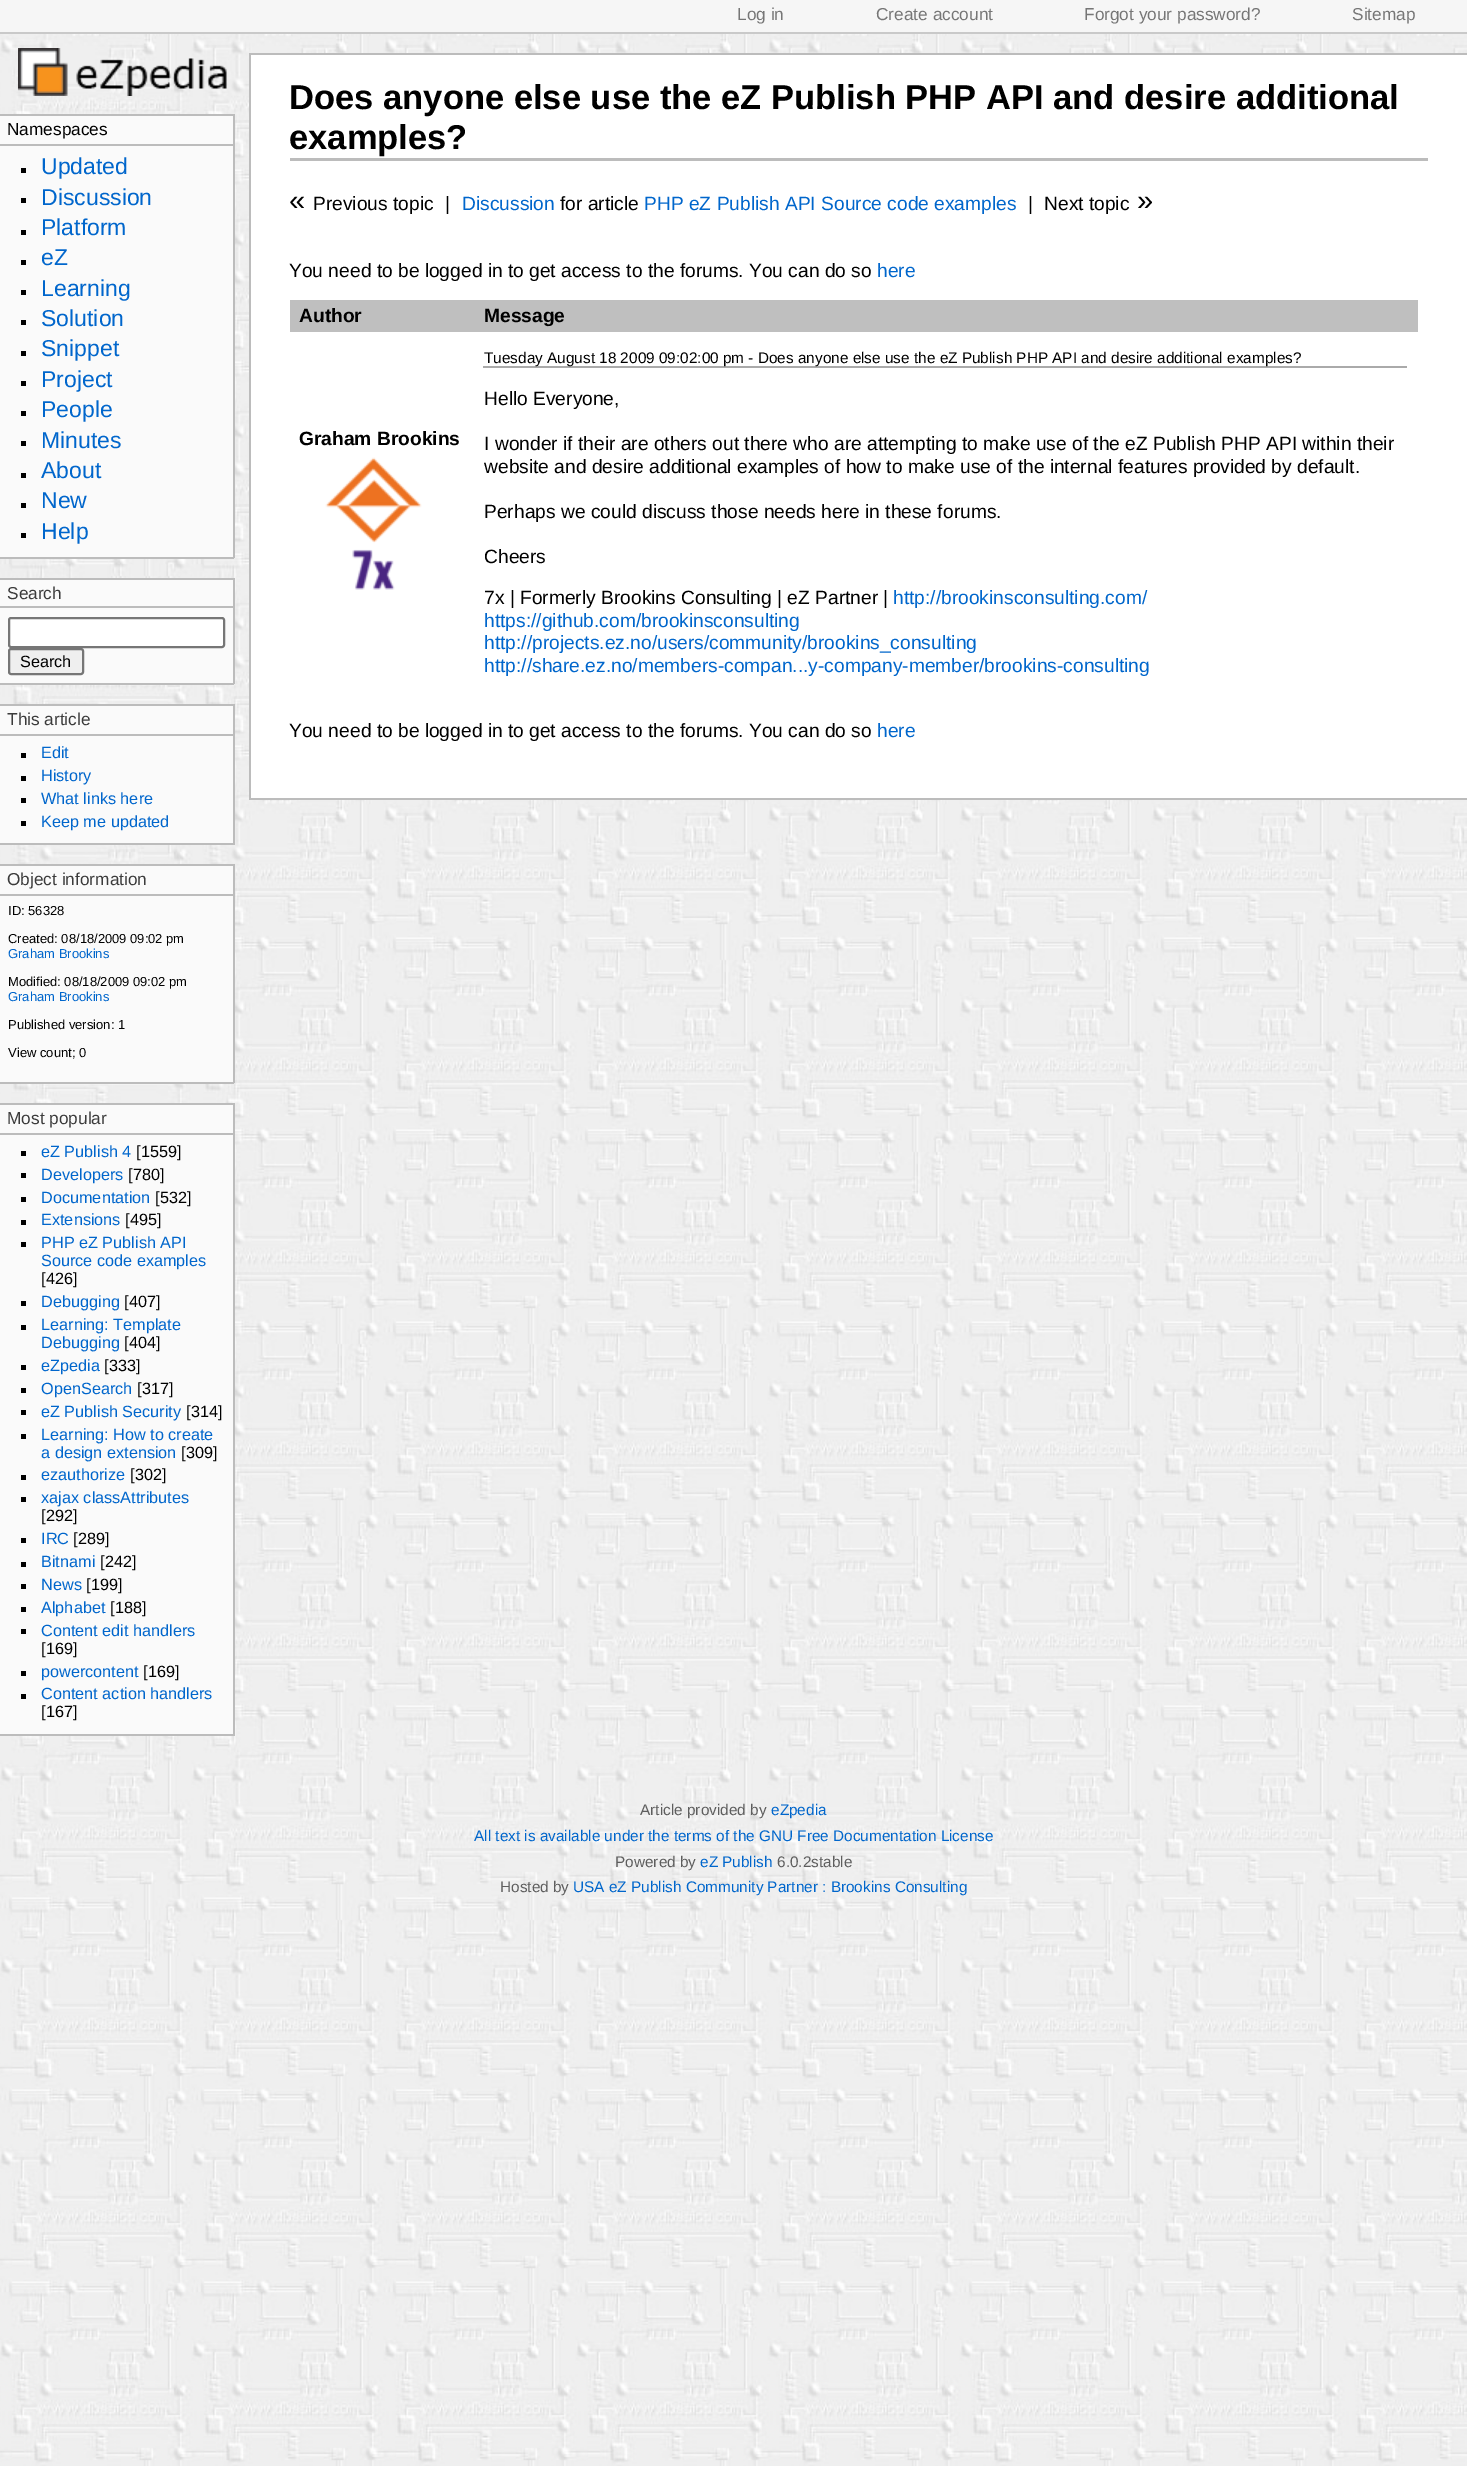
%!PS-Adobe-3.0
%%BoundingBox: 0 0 1467 2466
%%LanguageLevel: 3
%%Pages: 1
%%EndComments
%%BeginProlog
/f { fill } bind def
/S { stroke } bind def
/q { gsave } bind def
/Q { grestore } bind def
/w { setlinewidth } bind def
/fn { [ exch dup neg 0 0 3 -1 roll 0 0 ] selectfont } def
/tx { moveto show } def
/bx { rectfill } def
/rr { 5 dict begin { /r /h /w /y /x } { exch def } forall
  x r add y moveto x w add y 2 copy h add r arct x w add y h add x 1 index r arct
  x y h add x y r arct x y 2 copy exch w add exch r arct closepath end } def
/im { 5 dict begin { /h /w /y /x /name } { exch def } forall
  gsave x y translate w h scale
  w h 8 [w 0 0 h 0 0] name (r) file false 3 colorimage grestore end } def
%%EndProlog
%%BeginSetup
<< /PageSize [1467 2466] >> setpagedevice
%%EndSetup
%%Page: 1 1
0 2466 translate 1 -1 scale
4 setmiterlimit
1 setgray
0 0 1467 2466 bx
(image0.raw) 0 34 1467 2432 im
0.965 setgray
0 0 1467 32 bx
0.788 setgray
0 32 1467 2 bx
/LiberationSans-Regular 17.25 fn
0.463 setgray
(Log in) 737 20 tx
(Create account) 876 20 tx
(Forgot your password?) 1084 20 tx
(Sitemap) 1352 20 tx
(image1.raw) 18 48 209 48 im
0.98 setgray
0 116 233 441 bx
0.737 setgray
0 114 234 2 bx
233 114 2 444 bx
0 557 234 2 bx
0 144 233 2 bx
0 setgray
(Namespaces) 7 135 tx
21 168 5 5 bx
/LiberationSans-Regular 23 fn
0 0.4 0.8 setrgbcolor
(Updated) 41 174 tx
0 setgray
21 198 5 5 bx
0 0.4 0.8 setrgbcolor
(Discussion) 41 205 tx
0 setgray
21 230 5 5 bx
0 0.4 0.8 setrgbcolor
(Platform) 41 235 tx
0 setgray
21 260 5 5 bx
0 0.4 0.8 setrgbcolor
(eZ) 41 265 tx
0 setgray
21 290 5 5 bx
0 0.4 0.8 setrgbcolor
(Learning) 41 296 tx
0 setgray
21 320 5 5 bx
0 0.4 0.8 setrgbcolor
(Solution) 41 326 tx
0 setgray
21 351 5 5 bx
0 0.4 0.8 setrgbcolor
(Snippet) 41 356 tx
0 setgray
21 381 5 5 bx
0 0.4 0.8 setrgbcolor
(Project) 41 387 tx
0 setgray
21 411 5 5 bx
0 0.4 0.8 setrgbcolor
(People) 41 417 tx
0 setgray
21 441 5 5 bx
0 0.4 0.8 setrgbcolor
(Minutes) 41 448 tx
0 setgray
21 473 5 5 bx
0 0.4 0.8 setrgbcolor
(About) 41 478 tx
0 setgray
21 503 5 5 bx
0 0.4 0.8 setrgbcolor
(New) 41 508 tx
0 setgray
21 533 5 5 bx
0 0.4 0.8 setrgbcolor
(Help) 41 539 tx
0.98 setgray
0 580 233 103 bx
0.737 setgray
0 578 234 2 bx
233 578 2 106 bx
0 683 234 2 bx
0 606 233 2 bx
/LiberationSans-Regular 17.25 fn
0.231 setgray
(Search) 7 599 tx
1 setgray
9 618 215 29 2 rr q f Q
0.463 setgray
2 w
S
0.937 setgray
9 649 74 25 2 rr q f Q
0.463 setgray
S
/LiberationSans-Regular 16.25 fn
0 setgray
(Search) 20 667 tx
0.98 setgray
0 706 233 137 bx
0.737 setgray
0 704 234 2 bx
233 704 2 141 bx
0 843 234 2 bx
0 734 233 2 bx
/LiberationSans-Regular 17.25 fn
0.231 setgray
(This article) 7 725 tx
0 setgray
21 753 5 5 bx
/LiberationSans-Regular 16.25 fn
0 0.4 0.8 setrgbcolor
(Edit) 41 758 tx
0 setgray
21 776 5 5 bx
0 0.4 0.8 setrgbcolor
(History) 41 781 tx
0 setgray
21 798 5 5 bx
0 0.4 0.8 setrgbcolor
(What links here) 41 804 tx
0 setgray
21 821 5 5 bx
0 0.4 0.8 setrgbcolor
(Keep me updated) 41 827 tx
0.98 setgray
0 866 233 216 bx
0.737 setgray
0 864 234 2 bx
233 864 2 219 bx
0 1082 234 2 bx
0 894 233 2 bx
/LiberationSans-Regular 17.25 fn
0.231 setgray
(Object information) 7 885 tx
/LiberationSans-Regular 13 fn
0 setgray
(ID: 56328) 8 915 tx
(Created: 08/18/2009 09:02 pm) 8 943 tx
0 0.4 0.8 setrgbcolor
(Graham Brookins) 8 958 tx
0 setgray
(Modified: 08/18/2009 09:02 pm) 8 986 tx
0 0.4 0.8 setrgbcolor
(Graham Brookins) 8 1001 tx
0 setgray
(Published version: 1) 8 1029 tx
(View count; 0) 8 1057 tx
0.98 setgray
0 1105 233 629 bx
0.737 setgray
0 1103 234 2 bx
233 1103 2 633 bx
0 1734 234 2 bx
0 1133 233 2 bx
/LiberationSans-Regular 17.25 fn
0.231 setgray
(Most popular) 7 1124 tx
0 setgray
21 1151 5 5 bx
/LiberationSans-Regular 16.25 fn
0 0.4 0.8 setrgbcolor
(eZ Publish 4) 41 1157 tx
0 setgray
([1559]) 136 1157 tx
21 1173 5 5 bx
0 0.4 0.8 setrgbcolor
(Developers) 41 1180 tx
0 setgray
([780]) 128 1180 tx
21 1197 5 5 bx
0 0.4 0.8 setrgbcolor
(Documentation) 41 1203 tx
0 setgray
([532]) 155 1203 tx
21 1220 5 5 bx
0 0.4 0.8 setrgbcolor
(Extensions) 41 1225 tx
0 setgray
([495]) 125 1225 tx
21 1242 5 5 bx
0 0.4 0.8 setrgbcolor
(PHP eZ Publish API) 41 1248 tx
(Source code examples) 41 1266 tx
0 setgray
([426]) 41 1284 tx
21 1301 5 5 bx
0 0.4 0.8 setrgbcolor
(Debugging) 41 1307 tx
0 setgray
([407]) 124 1307 tx
21 1325 5 5 bx
0 0.4 0.8 setrgbcolor
(Learning: Template) 41 1330 tx
(Debugging) 41 1348 tx
0 setgray
([404]) 124 1348 tx
21 1365 5 5 bx
0 0.4 0.8 setrgbcolor
(eZpedia) 41 1371 tx
0 setgray
([333]) 104 1371 tx
21 1388 5 5 bx
0 0.4 0.8 setrgbcolor
(OpenSearch) 41 1394 tx
0 setgray
([317]) 137 1394 tx
21 1410 5 5 bx
0 0.4 0.8 setrgbcolor
(eZ Publish Security) 41 1417 tx
0 setgray
([314]) 186 1417 tx
21 1434 5 5 bx
0 0.4 0.8 setrgbcolor
(Learning: How to create) 41 1440 tx
(a design extension) 41 1458 tx
0 setgray
([309]) 181 1458 tx
21 1475 5 5 bx
0 0.4 0.8 setrgbcolor
(ezauthorize) 41 1480 tx
0 setgray
([302]) 130 1480 tx
21 1497 5 5 bx
0 0.4 0.8 setrgbcolor
(xajax classAttributes) 41 1503 tx
0 setgray
([292]) 41 1521 tx
21 1538 5 5 bx
0 0.4 0.8 setrgbcolor
(IRC) 41 1544 tx
0 setgray
([289]) 73 1544 tx
21 1562 5 5 bx
0 0.4 0.8 setrgbcolor
(Bitnami) 41 1567 tx
0 setgray
([242]) 100 1567 tx
21 1584 5 5 bx
0 0.4 0.8 setrgbcolor
(News) 41 1590 tx
0 setgray
([199]) 86 1590 tx
21 1607 5 5 bx
0 0.4 0.8 setrgbcolor
(Alphabet) 41 1613 tx
0 setgray
([188]) 110 1613 tx
21 1629 5 5 bx
0 0.4 0.8 setrgbcolor
(Content edit handlers) 41 1636 tx
0 setgray
([169]) 41 1654 tx
21 1671 5 5 bx
0 0.4 0.8 setrgbcolor
(powercontent) 41 1677 tx
0 setgray
([169]) 143 1677 tx
21 1694 5 5 bx
0 0.4 0.8 setrgbcolor
(Content action handlers) 41 1699 tx
0 setgray
([167]) 41 1717 tx
1 setgray
251 55 1216 743 bx
0.737 setgray
249 53 1218 2 bx
249 798 1218 2 bx
249 53 2 747 bx
290 158 1138 3 bx
/LiberationSans-Bold 34.55 fn
0 setgray
(Does anyone else use the eZ Publish PHP API and desire additional) 289 109 tx
(examples?) 289 149 tx
/LiberationSans-Regular 29 fn
(«) 289 210 tx
/LiberationSans-Regular 19.2 fn
(Previous topic) 313 210 tx
(|) 445 210 tx
0 0.4 0.8 setrgbcolor
(Discussion) 462 210 tx
0 setgray
(for article) 560 210 tx
0 0.4 0.8 setrgbcolor
(PHP eZ Publish API Source code examples) 644 210 tx
0 setgray
(|) 1028 210 tx
(Next topic) 1044 210 tx
/LiberationSans-Regular 29 fn
(») 1137 210 tx
/LiberationSans-Regular 19.2 fn
(You need to be logged in to get access to the forums. You can do so) 289 277 tx
0 0.4 0.8 setrgbcolor
(here) 877 277 tx
0.749 setgray
290 300 1128 32 bx
/LiberationSans-Bold 19.2 fn
0 setgray
(Author) 299 322 tx
(Message) 484 322 tx
(Graham Brookins) 299 445 tx
(image2.raw) 325 457 97 133 im
0.667 setgray
483 366 924 2 bx
/LiberationSans-Regular 15.35 fn
0 setgray
(Tuesday August 18 2009 09:02:00 pm - Does anyone else use the eZ Publish PHP API and desire additional examples?) 484 363 tx
/LiberationSans-Regular 19.2 fn
(Hello Everyone,) 484 405 tx
(I wonder if their are others out there who are attempting to make use of the eZ Publish PHP API within their) 484 450 tx
(website and desire additional examples of how to make use of the internal features provided by default.) 484 473 tx
(Perhaps we could discuss those needs here in these forums.) 484 518 tx
(Cheers) 484 563 tx
(7x | Formerly Brookins Consulting | eZ Partner |) 484 604 tx
0 0.4 0.8 setrgbcolor
(http://brookinsconsulting.com/) 893 604 tx
(https://github.com/brookinsconsulting) 484 627 tx
(http://projects.ez.no/users/community/brookins_consulting) 484 649 tx
(http://share.ez.no/members-compan...y-company-member/brookins-consulting) 484 672 tx
0 setgray
(You need to be logged in to get access to the forums. You can do so) 289 737 tx
0 0.4 0.8 setrgbcolor
(here) 877 737 tx
/LiberationSans-Regular 15.35 fn
0.369 setgray
(Article provided by) 640 1815 tx
0 0.4 0.8 setrgbcolor
(eZpedia) 771 1815 tx
(All text is available under the terms of the GNU Free Documentation License) 474 1841 tx
0.369 setgray
(Powered by) 615 1867 tx
0 0.4 0.8 setrgbcolor
(eZ Publish) 700 1867 tx
0.369 setgray
(6.0.2stable) 777 1867 tx
(Hosted by) 500 1892 tx
0 0.4 0.8 setrgbcolor
(USA eZ Publish Community Partner : Brookins Consulting) 573 1892 tx
showpage
%%EOF
